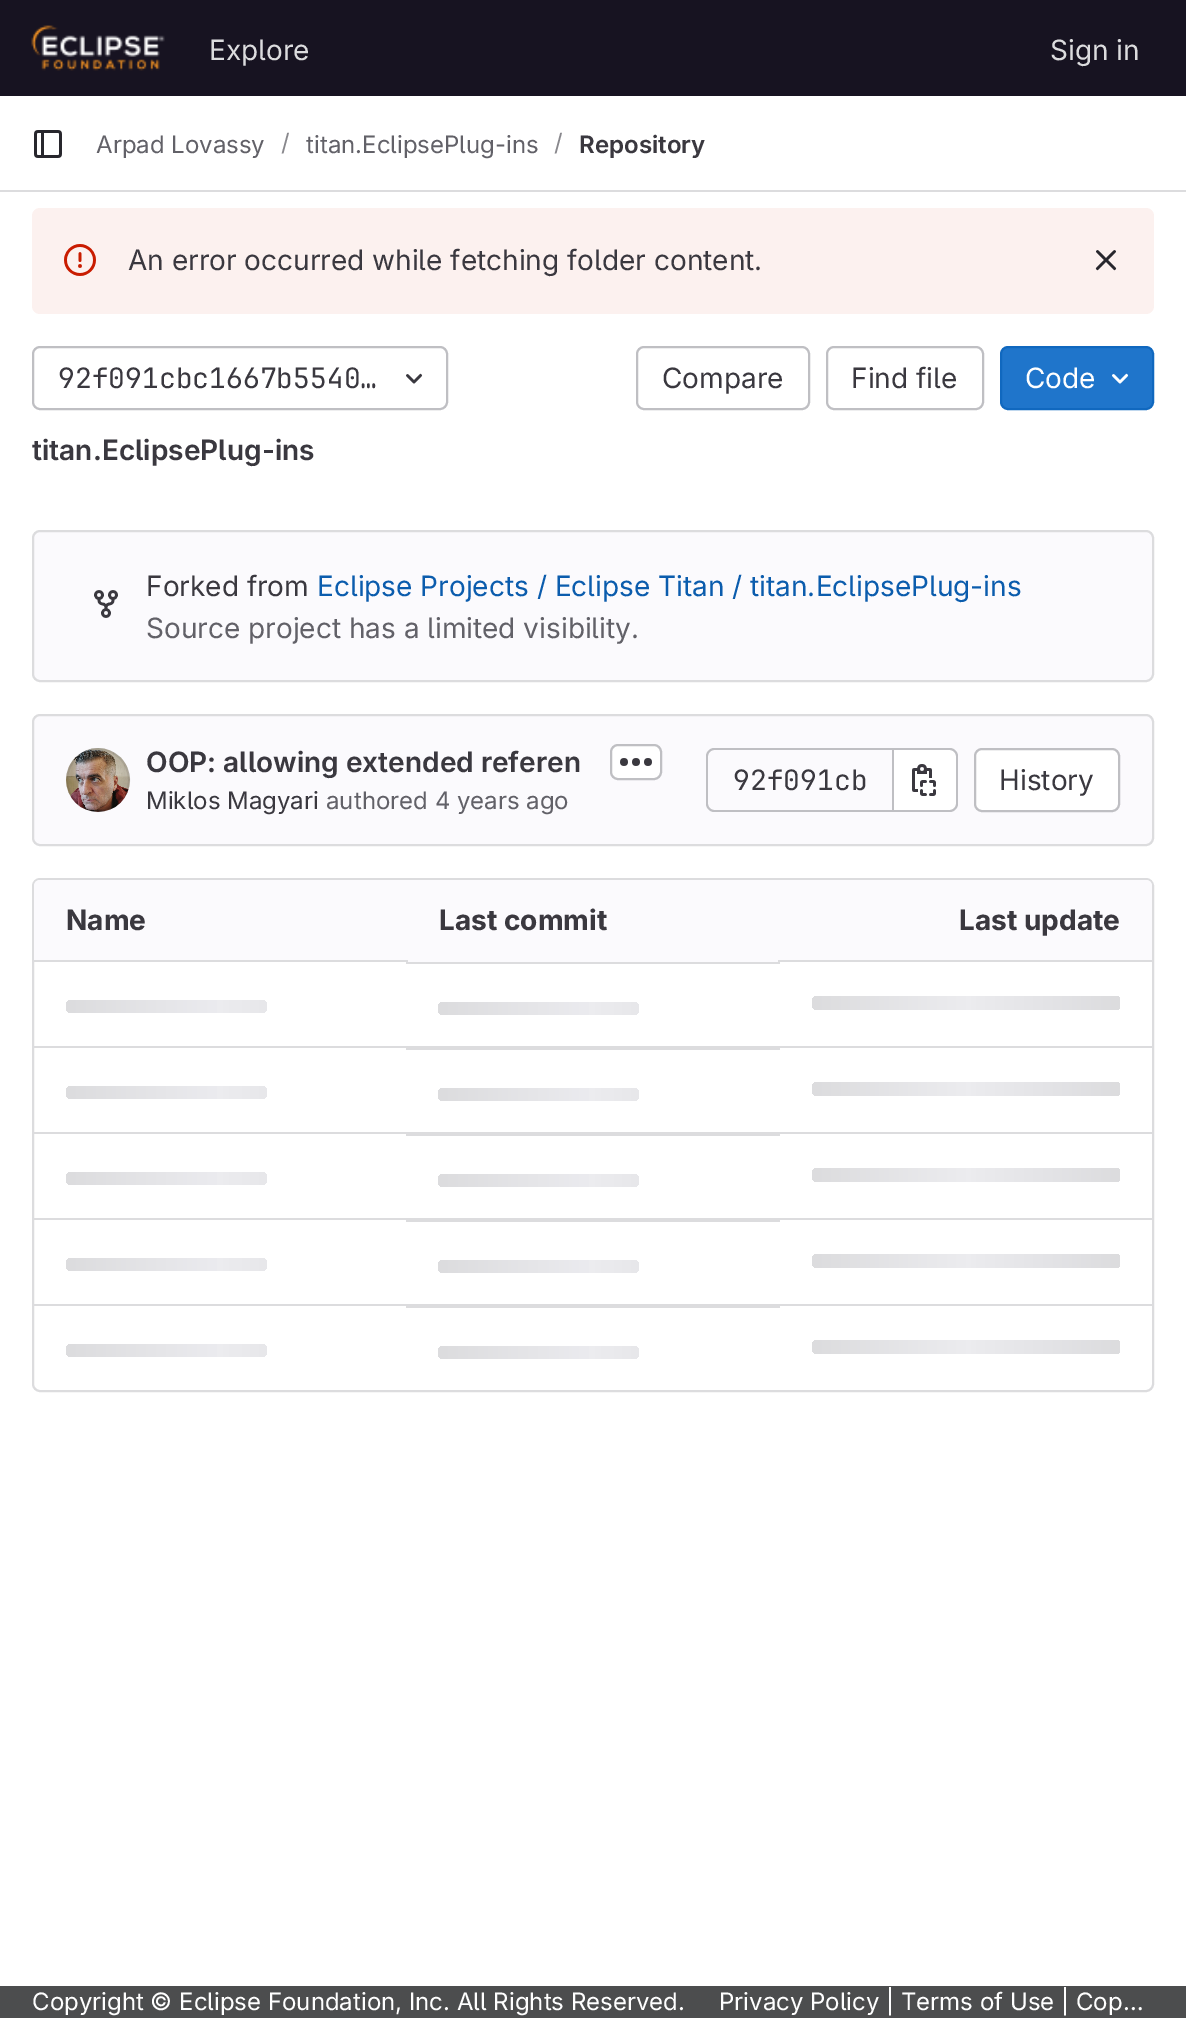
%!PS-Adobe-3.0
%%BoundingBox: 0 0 1186 2018
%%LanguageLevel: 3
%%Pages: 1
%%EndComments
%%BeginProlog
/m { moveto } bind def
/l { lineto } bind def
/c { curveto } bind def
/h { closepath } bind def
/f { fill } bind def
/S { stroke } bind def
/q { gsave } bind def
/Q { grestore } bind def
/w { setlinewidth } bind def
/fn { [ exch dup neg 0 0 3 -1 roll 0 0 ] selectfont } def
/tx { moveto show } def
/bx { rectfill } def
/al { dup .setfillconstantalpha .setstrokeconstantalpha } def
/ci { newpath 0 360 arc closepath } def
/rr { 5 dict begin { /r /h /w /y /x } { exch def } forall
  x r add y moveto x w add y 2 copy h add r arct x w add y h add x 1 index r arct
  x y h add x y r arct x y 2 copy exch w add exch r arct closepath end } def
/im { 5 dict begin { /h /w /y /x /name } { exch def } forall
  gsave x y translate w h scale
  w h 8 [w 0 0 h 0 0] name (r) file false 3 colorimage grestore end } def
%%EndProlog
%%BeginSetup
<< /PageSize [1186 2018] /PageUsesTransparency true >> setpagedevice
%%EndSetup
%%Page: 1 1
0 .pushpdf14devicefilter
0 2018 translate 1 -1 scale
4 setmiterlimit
1 setgray
0 0 1186 2018 bx
0.09 0.075 0.129 setrgbcolor
0 0 1186 96 bx
(image0.raw) 31 25 134 46 im
/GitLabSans-Regular 28 fn
0.863 0.863 0.871 setrgbcolor
(Explore) 209 60 tx
(Sign in) 1050 60 tx
0 190 1186 2 bx
(image1.raw) 34 130 28 28 im
/GitLabSans-Regular 24 fn
0.384 0.38 0.408 setrgbcolor
(Arpad Lovassy) 96 153 tx
0.537 0.533 0.553 setrgbcolor
(/) 281 151 tx
0.384 0.38 0.408 setrgbcolor
(titan.EclipsePlug-ins) 306 153 tx
0.537 0.533 0.553 setrgbcolor
(/) 554 151 tx
/GitLabSans-SemiBold 24 fn
0.227 0.22 0.247 setrgbcolor
(Repository) 579 153 tx
0.988 0.945 0.937 setrgbcolor
32 208 1122 106 8 rr f
(image2.raw) 64 244 32 32 im
/GitLabSans-Regular 28 fn
0.227 0.22 0.247 setrgbcolor
(An error occurred while fetching folder content.) 128 270 tx
(image3.raw) 1095 250 22 21 im
0.749 0.749 0.765 setrgbcolor
2 w
33 347 414 62 7 rr S
/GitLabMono-Regular 28 fn
0.227 0.22 0.247 setrgbcolor
(92f091cbc1667b5540…) 58 388 tx
(image4.raw) 406 373 17 11 im
/GitLabSans-SemiBold 28 fn
(titan.EclipsePlug-ins) 32 460 tx
0.749 0.749 0.765 setrgbcolor
637 347 172 62 7 rr S
/GitLabSans-Regular 28 fn
0.227 0.22 0.247 setrgbcolor
(Compare) 662 388 tx
0.749 0.749 0.765 setrgbcolor
827 347 156 62 7 rr S
0.227 0.22 0.247 setrgbcolor
(Find file) 851 388 tx
0.122 0.459 0.796 setrgbcolor
1001 347 152 62 7 rr q f Q
0.063 0.408 0.749 setrgbcolor
S
1 setgray
(Code) 1025 388 tx
(image5.raw) 1112 373 17 11 im
0.984 0.98 0.992 setrgbcolor
33 531 1120 150 7 rr q f Q
0.863 0.863 0.871 setrgbcolor
S
(image6.raw) 94 590 24 28 im
0.227 0.22 0.247 setrgbcolor
(Forked from) 146 596 tx
0.043 0.361 0.678 setrgbcolor
(Eclipse Projects / Eclipse Titan / titan.EclipsePlug-ins) 317 596 tx
0.384 0.38 0.408 setrgbcolor
(Source project has a limited visibility.) 146 638 tx
0.984 0.98 0.992 setrgbcolor
33 715 1120 130 7 rr q f Q
0.863 0.863 0.871 setrgbcolor
S
(image7.raw) 66 748 64 64 im
0.08 al
0.02 0.02 0.024 setrgbcolor
98 780 31 ci S
/GitLabSans-SemiBold 28 fn
1 al
0.227 0.22 0.247 setrgbcolor
(OOP: allowing extended referen) 146 772 tx
1 setgray
611 745 50 34 7 rr q f Q
0.749 0.749 0.765 setrgbcolor
S
(image8.raw) 620 758 32 8 im
/GitLabSans-Regular 24 fn
0.227 0.22 0.247 setrgbcolor
(Miklos Magyari) 146 809 tx
0.384 0.38 0.408 setrgbcolor
(authored 4 years ago) 326 809 tx
0.749 0.749 0.765 setrgbcolor
714 748 m 892 748 l 892 812 l 714 812 l 710 812 706 808 706 804 c 706 756 l 706 752 710 748 714 748 c h 714 750 m 892 750 l 892 810 l 714 810 l 711 810 708 807 708 804 c 708 756 l 708 753 711 750 714 750 c h eofill
/GitLabMono-Regular 28 fn
0.227 0.22 0.247 setrgbcolor
(92f091cb) 733 790 tx
1 setgray
894 750 m 950 750 l 953.5 750 956 752.5 956 756 c 956 804 l 956 807.5 953.5 810 950 810 c 894 810 l h f
0.749 0.749 0.765 setrgbcolor
894 748 m 950 748 l 954 748 958 752 958 756 c 958 804 l 958 808 954 812 950 812 c 894 812 l h 894 750 m 950 750 l 953 750 956 753 956 756 c 956 804 l 956 807 953 810 950 810 c 894 810 l h eofill
892 748 2 64 bx
(image9.raw) 912 764 24 32 im
1 setgray
975 749 144 62 7 rr q f Q
0.749 0.749 0.765 setrgbcolor
S
/GitLabSans-Regular 28 fn
0.227 0.22 0.247 setrgbcolor
(History) 999 790 tx
0.863 0.863 0.871 setrgbcolor
33 879 1120 512 7 rr S
0.984 0.98 0.992 setrgbcolor
40 880 m 406 880 l 406 962 l 34 962 l 34 886 l 34 882.5 36.5 880 40 880 c h f
/GitLabSans-Bold 28 fn
0.227 0.22 0.247 setrgbcolor
(Name) 66 930 tx
0.984 0.98 0.992 setrgbcolor
406 880 374 82 bx
0.227 0.22 0.247 setrgbcolor
(Last commit) 439 930 tx
0.984 0.98 0.992 setrgbcolor
780 880 m 1146 880 l 1149.5 880 1152 882.5 1152 886 c 1152 962 l 780 962 l h f
0.227 0.22 0.247 setrgbcolor
(Last update) 959 930 tx
0.863 0.863 0.871 setrgbcolor
34 1046 1118 2 bx
34 960 374 2 bx
q 66 1000 201 13 5 rr clip newpath
<< /ShadingType 2 /ColorSpace /DeviceRGB /Coords [66 1000 375 1000] /Extend [true true] /Function << /FunctionType 3 /Domain [0 1] /Functions [<< /FunctionType 2 /Domain [0 1] /C0 [0.863 0.863 0.871] /C1 [0.925 0.925 0.937] /N 1 >> << /FunctionType 2 /Domain [0 1] /C0 [0.925 0.925 0.937] /C1 [0.863 0.863 0.871] /N 1 >>] /Bounds [0.5] /Encode [0 1 0 1] >> >> shfill Q
406 962 374 2 bx
q 438 1002 201 13 5 rr clip newpath
<< /ShadingType 2 /ColorSpace /DeviceRGB /Coords [438 1002 747 1002] /Extend [true true] /Function << /FunctionType 3 /Domain [0 1] /Functions [<< /FunctionType 2 /Domain [0 1] /C0 [0.863 0.863 0.871] /C1 [0.925 0.925 0.937] /N 1 >> << /FunctionType 2 /Domain [0 1] /C0 [0.925 0.925 0.937] /C1 [0.863 0.863 0.871] /N 1 >>] /Bounds [0.5] /Encode [0 1 0 1] >> >> shfill Q
778 960 374 2 bx
q
812 996 309 14 5 rr clip newpath
q 817 996 m 1120 996 l 1120 1010 l 817 1010 l 814 1010 812 1008 812 1005 c 812 1001 l 812 998 814 996 817 996 c h clip newpath
<< /ShadingType 2 /ColorSpace /DeviceRGB /Coords [812 996 1121 996] /Extend [true true] /Function << /FunctionType 3 /Domain [0 1] /Functions [<< /FunctionType 2 /Domain [0 1] /C0 [0.863 0.863 0.871] /C1 [0.925 0.925 0.937] /N 1 >> << /FunctionType 2 /Domain [0 1] /C0 [0.925 0.925 0.937] /C1 [0.863 0.863 0.871] /N 1 >>] /Bounds [0.5] /Encode [0 1 0 1] >> >> shfill Q
Q
34 1132 1118 2 bx
q 66 1086 201 13 5 rr clip newpath
<< /ShadingType 2 /ColorSpace /DeviceRGB /Coords [66 1086 375 1086] /Extend [true true] /Function << /FunctionType 3 /Domain [0 1] /Functions [<< /FunctionType 2 /Domain [0 1] /C0 [0.863 0.863 0.871] /C1 [0.925 0.925 0.937] /N 1 >> << /FunctionType 2 /Domain [0 1] /C0 [0.925 0.925 0.937] /C1 [0.863 0.863 0.871] /N 1 >>] /Bounds [0.5] /Encode [0 1 0 1] >> >> shfill Q
406 1048 374 2 bx
q 438 1088 201 13 5 rr clip newpath
<< /ShadingType 2 /ColorSpace /DeviceRGB /Coords [438 1088 747 1088] /Extend [true true] /Function << /FunctionType 3 /Domain [0 1] /Functions [<< /FunctionType 2 /Domain [0 1] /C0 [0.863 0.863 0.871] /C1 [0.925 0.925 0.937] /N 1 >> << /FunctionType 2 /Domain [0 1] /C0 [0.925 0.925 0.937] /C1 [0.863 0.863 0.871] /N 1 >>] /Bounds [0.5] /Encode [0 1 0 1] >> >> shfill Q
q
812 1082 309 14 5 rr clip newpath
q 817 1082 m 1120 1082 l 1120 1096 l 817 1096 l 814 1096 812 1094 812 1091 c 812 1087 l 812 1084 814 1082 817 1082 c h clip newpath
<< /ShadingType 2 /ColorSpace /DeviceRGB /Coords [812 1082 1121 1082] /Extend [true true] /Function << /FunctionType 3 /Domain [0 1] /Functions [<< /FunctionType 2 /Domain [0 1] /C0 [0.863 0.863 0.871] /C1 [0.925 0.925 0.937] /N 1 >> << /FunctionType 2 /Domain [0 1] /C0 [0.925 0.925 0.937] /C1 [0.863 0.863 0.871] /N 1 >>] /Bounds [0.5] /Encode [0 1 0 1] >> >> shfill Q
Q
34 1218 1118 2 bx
q 66 1172 201 13 5 rr clip newpath
<< /ShadingType 2 /ColorSpace /DeviceRGB /Coords [66 1172 375 1172] /Extend [true true] /Function << /FunctionType 3 /Domain [0 1] /Functions [<< /FunctionType 2 /Domain [0 1] /C0 [0.863 0.863 0.871] /C1 [0.925 0.925 0.937] /N 1 >> << /FunctionType 2 /Domain [0 1] /C0 [0.925 0.925 0.937] /C1 [0.863 0.863 0.871] /N 1 >>] /Bounds [0.5] /Encode [0 1 0 1] >> >> shfill Q
406 1134 374 2 bx
q 438 1174 201 13 5 rr clip newpath
<< /ShadingType 2 /ColorSpace /DeviceRGB /Coords [438 1174 747 1174] /Extend [true true] /Function << /FunctionType 3 /Domain [0 1] /Functions [<< /FunctionType 2 /Domain [0 1] /C0 [0.863 0.863 0.871] /C1 [0.925 0.925 0.937] /N 1 >> << /FunctionType 2 /Domain [0 1] /C0 [0.925 0.925 0.937] /C1 [0.863 0.863 0.871] /N 1 >>] /Bounds [0.5] /Encode [0 1 0 1] >> >> shfill Q
q
812 1168 309 14 5 rr clip newpath
q 817 1168 m 1120 1168 l 1120 1182 l 817 1182 l 814 1182 812 1180 812 1177 c 812 1173 l 812 1170 814 1168 817 1168 c h clip newpath
<< /ShadingType 2 /ColorSpace /DeviceRGB /Coords [812 1168 1121 1168] /Extend [true true] /Function << /FunctionType 3 /Domain [0 1] /Functions [<< /FunctionType 2 /Domain [0 1] /C0 [0.863 0.863 0.871] /C1 [0.925 0.925 0.937] /N 1 >> << /FunctionType 2 /Domain [0 1] /C0 [0.925 0.925 0.937] /C1 [0.863 0.863 0.871] /N 1 >>] /Bounds [0.5] /Encode [0 1 0 1] >> >> shfill Q
Q
34 1304 1118 2 bx
q 66 1258 201 13 5 rr clip newpath
<< /ShadingType 2 /ColorSpace /DeviceRGB /Coords [66 1258 375 1258] /Extend [true true] /Function << /FunctionType 3 /Domain [0 1] /Functions [<< /FunctionType 2 /Domain [0 1] /C0 [0.863 0.863 0.871] /C1 [0.925 0.925 0.937] /N 1 >> << /FunctionType 2 /Domain [0 1] /C0 [0.925 0.925 0.937] /C1 [0.863 0.863 0.871] /N 1 >>] /Bounds [0.5] /Encode [0 1 0 1] >> >> shfill Q
406 1220 374 2 bx
q 438 1260 201 13 5 rr clip newpath
<< /ShadingType 2 /ColorSpace /DeviceRGB /Coords [438 1260 747 1260] /Extend [true true] /Function << /FunctionType 3 /Domain [0 1] /Functions [<< /FunctionType 2 /Domain [0 1] /C0 [0.863 0.863 0.871] /C1 [0.925 0.925 0.937] /N 1 >> << /FunctionType 2 /Domain [0 1] /C0 [0.925 0.925 0.937] /C1 [0.863 0.863 0.871] /N 1 >>] /Bounds [0.5] /Encode [0 1 0 1] >> >> shfill Q
q
812 1254 309 14 5 rr clip newpath
q 817 1254 m 1120 1254 l 1120 1268 l 817 1268 l 814 1268 812 1266 812 1263 c 812 1259 l 812 1256 814 1254 817 1254 c h clip newpath
<< /ShadingType 2 /ColorSpace /DeviceRGB /Coords [812 1254 1121 1254] /Extend [true true] /Function << /FunctionType 3 /Domain [0 1] /Functions [<< /FunctionType 2 /Domain [0 1] /C0 [0.863 0.863 0.871] /C1 [0.925 0.925 0.937] /N 1 >> << /FunctionType 2 /Domain [0 1] /C0 [0.925 0.925 0.937] /C1 [0.863 0.863 0.871] /N 1 >>] /Bounds [0.5] /Encode [0 1 0 1] >> >> shfill Q
Q
q 66 1344 201 13 5 rr clip newpath
<< /ShadingType 2 /ColorSpace /DeviceRGB /Coords [66 1344 375 1344] /Extend [true true] /Function << /FunctionType 3 /Domain [0 1] /Functions [<< /FunctionType 2 /Domain [0 1] /C0 [0.863 0.863 0.871] /C1 [0.925 0.925 0.937] /N 1 >> << /FunctionType 2 /Domain [0 1] /C0 [0.925 0.925 0.937] /C1 [0.863 0.863 0.871] /N 1 >>] /Bounds [0.5] /Encode [0 1 0 1] >> >> shfill Q
406 1306 374 2 bx
q 438 1346 201 13 5 rr clip newpath
<< /ShadingType 2 /ColorSpace /DeviceRGB /Coords [438 1346 747 1346] /Extend [true true] /Function << /FunctionType 3 /Domain [0 1] /Functions [<< /FunctionType 2 /Domain [0 1] /C0 [0.863 0.863 0.871] /C1 [0.925 0.925 0.937] /N 1 >> << /FunctionType 2 /Domain [0 1] /C0 [0.925 0.925 0.937] /C1 [0.863 0.863 0.871] /N 1 >>] /Bounds [0.5] /Encode [0 1 0 1] >> >> shfill Q
q
812 1340 309 14 5 rr clip newpath
q 817 1340 m 1120 1340 l 1120 1354 l 817 1354 l 814 1354 812 1352 812 1349 c 812 1345 l 812 1342 814 1340 817 1340 c h clip newpath
<< /ShadingType 2 /ColorSpace /DeviceRGB /Coords [812 1340 1121 1340] /Extend [true true] /Function << /FunctionType 3 /Domain [0 1] /Functions [<< /FunctionType 2 /Domain [0 1] /C0 [0.863 0.863 0.871] /C1 [0.925 0.925 0.937] /N 1 >> << /FunctionType 2 /Domain [0 1] /C0 [0.925 0.925 0.937] /C1 [0.863 0.863 0.871] /N 1 >>] /Bounds [0.5] /Encode [0 1 0 1] >> >> shfill Q
Q
0.298 0.302 0.306 setrgbcolor
0 1986 1186 32 bx
/GitLabSans-Regular 24 fn
1 setgray
(Copyright © Eclipse Foundation, Inc. All Rights Reserved.) 32 2010 tx
(Privacy Policy | Terms of Use | Cop…) 719 2010 tx
.poppdf14devicefilter showpage
%%EOF
